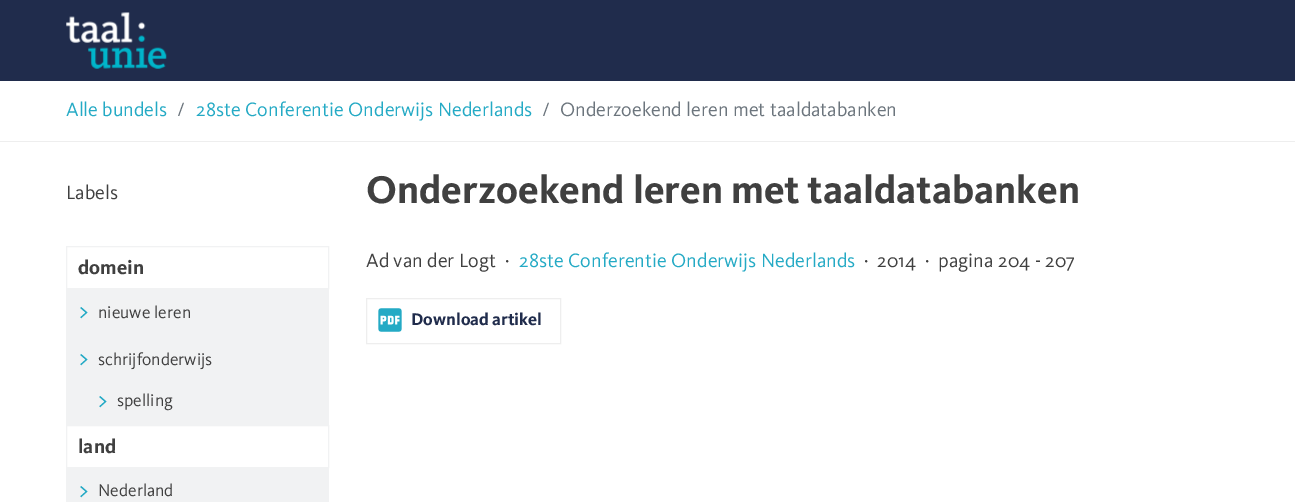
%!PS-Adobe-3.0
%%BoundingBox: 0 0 1295 502
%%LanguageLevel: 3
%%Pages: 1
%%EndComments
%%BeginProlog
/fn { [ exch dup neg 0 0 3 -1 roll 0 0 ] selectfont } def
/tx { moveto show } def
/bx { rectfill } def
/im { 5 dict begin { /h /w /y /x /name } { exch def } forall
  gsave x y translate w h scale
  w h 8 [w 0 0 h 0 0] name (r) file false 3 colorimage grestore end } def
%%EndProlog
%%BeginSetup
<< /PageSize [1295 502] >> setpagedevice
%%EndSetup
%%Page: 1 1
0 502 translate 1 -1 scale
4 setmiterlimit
1 setgray
0 0 1295 502 bx
0.125 0.173 0.298 setrgbcolor
0 0 1295 81 bx
(image0.raw) 66 12 101 57 im
0.933 setgray
0 141 1295 1 bx
/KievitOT-Regular 20 fn
0.141 0.667 0.773 setrgbcolor
(Alle bundels) 66 116 tx
0.424 0.459 0.49 setrgbcolor
(/) 177 116 tx
0.141 0.667 0.773 setrgbcolor
(28ste Conferentie Onderwijs Nederlands) 196 116 tx
0.424 0.459 0.49 setrgbcolor
(/) 542 116 tx
(Onderzoekend leren met taaldatabanken) 560 116 tx
0.251 setgray
(Labels) 66 199 tx
0.945 0.949 0.953 setrgbcolor
66.5 246.5 262 42 rectstroke
/KievitOT-Bold 20 fn
0.251 setgray
(domein) 78 274 tx
0.945 0.949 0.953 setrgbcolor
66 289 263 136 bx
/KievitOT-Regular 26 fn
0.141 0.667 0.773 setrgbcolor
(>) 79 319 tx
/KievitOT-Regular 17.5 fn
0.251 setgray
(nieuwe leren) 98 318 tx
/KievitOT-Regular 26 fn
0.141 0.667 0.773 setrgbcolor
(>) 79 366 tx
/KievitOT-Regular 17.5 fn
0.251 setgray
(schrijfonderwijs) 98 365 tx
/KievitOT-Regular 26 fn
0.141 0.667 0.773 setrgbcolor
(>) 98 408 tx
/KievitOT-Regular 17.5 fn
0.251 setgray
(spelling) 117 406 tx
0.945 0.949 0.953 setrgbcolor
66.5 425.5 262 42 rectstroke
/KievitOT-Bold 20 fn
0.251 setgray
(land) 78 453 tx
0.945 0.949 0.953 setrgbcolor
66 468 263 34 bx
/KievitOT-Regular 26 fn
0.141 0.667 0.773 setrgbcolor
(>) 79 498 tx
/KievitOT-Regular 17.5 fn
0.251 setgray
(Nederland) 98 496 tx
/KievitOT-Bold 40 fn
(Onderzoekend leren met taaldatabanken) 366 203 tx
/KievitOT-Regular 20 fn
(Ad van der Logt  ·) 366 267 tx
0.141 0.667 0.773 setrgbcolor
(28ste Conferentie Onderwijs Nederlands) 519 267 tx
0.251 setgray
(·  2014  ·  pagina 204 - 207) 864 267 tx
0.933 setgray
366.5 298.5 194 45 rectstroke
(image1.raw) 378 308 24 24 im
/KievitOT-Bold 17.5 fn
0.125 0.173 0.298 setrgbcolor
(Download artikel) 411 325 tx
showpage
%%EOF
